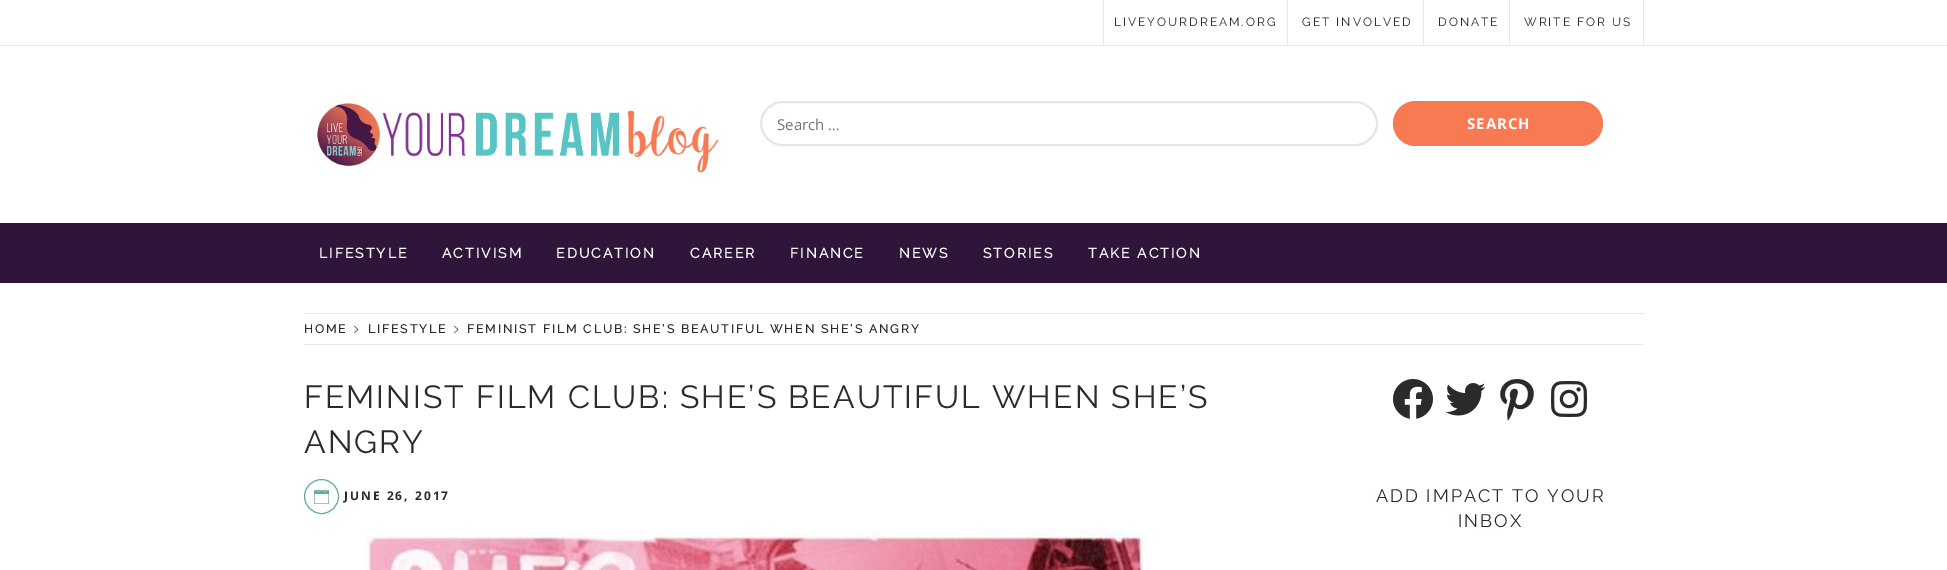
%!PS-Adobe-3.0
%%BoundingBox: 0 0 1947 570
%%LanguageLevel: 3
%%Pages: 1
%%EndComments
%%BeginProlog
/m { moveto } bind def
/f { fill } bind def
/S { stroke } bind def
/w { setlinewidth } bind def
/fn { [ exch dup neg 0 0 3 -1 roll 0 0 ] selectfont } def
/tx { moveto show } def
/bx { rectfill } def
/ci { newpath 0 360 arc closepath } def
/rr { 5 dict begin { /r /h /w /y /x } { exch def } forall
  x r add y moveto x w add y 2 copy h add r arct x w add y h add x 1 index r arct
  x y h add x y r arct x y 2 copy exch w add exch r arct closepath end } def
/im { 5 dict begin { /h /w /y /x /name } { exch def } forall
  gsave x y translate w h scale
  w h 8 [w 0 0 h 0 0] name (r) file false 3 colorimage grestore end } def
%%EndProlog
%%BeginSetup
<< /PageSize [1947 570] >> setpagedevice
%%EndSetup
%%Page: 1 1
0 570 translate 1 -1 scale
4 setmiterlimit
1 setgray
0 0 1947 570 bx
0.91 setgray
0 45 1947 1 bx
1287 0 1 45 bx
1103 0 1 45 bx
/Raleway-Thin 12 fn
0.169 setgray
1114 26 m 2 0 (LIVEYOURDREAM.ORG) ashow
0.91 setgray
1423 0 1 45 bx
0.169 setgray
1302 26 m 2 0 (GET INVOLVED) ashow
0.91 setgray
1509 0 1 45 bx
0.169 setgray
1438 26 m 2 0 (DONATE) ashow
0.91 setgray
1643 0 1 45 bx
0.169 setgray
1524 26 m 2 0 (WRITE FOR US) ashow
(image0.raw) 317 103 402 70 im
0.898 setgray
2 w
761 102 616 43 21.5 rr S
/OpenSans-Regular 15 fn
0.459 setgray
(Search …) 777 130 tx
0.969 0.478 0.322 setrgbcolor
1393 101 210 45 22.5 rr f
/OpenSans-Bold 15 fn
1 setgray
1467 129 m 1 0 (SEARCH) ashow
0.184 0.082 0.224 setrgbcolor
0 223 1947 60 bx
/Raleway-Bold 14 fn
1 setgray
319 258 m 2 0 (LIFESTYLE) ashow
442 258 m 2 0 (ACTIVISM) ashow
556 258 m 2 0 (EDUCATION) ashow
690 258 m 2 0 (CAREER) ashow
790 258 m 2 0 (FINANCE) ashow
899 258 m 2 0 (NEWS) ashow
983 258 m 2 0 (STORIES) ashow
1088 258 m 2 0 (TAKE ACTION) ashow
0.91 setgray
304 313 1340 1 bx
304 344 1340 1 bx
/Raleway-Bold 12 fn
0.169 setgray
304 333 m 2 0 (HOME) ashow
(image1.raw) 354 325 5 9 im
368 333 m 2 0 (LIFESTYLE) ashow
(image1.raw) 454 325 5 9 im
467 333 m 2 0 (FEMINIST FILM CLUB: SHE’S BEAUTIFUL WHEN SHE’S ANGRY) ashow
/Raleway-Thin 32 fn
304 408 m 2 0 (FEMINIST FILM CLUB: SHE’S BEAUTIFUL WHEN SHE’S) ashow
304 453 m 2 0 (ANGRY) ashow
0.404 0.663 0.608 setrgbcolor
1 w
321.5 496.5 17 ci S
(image2.raw) 314 489 15 15 im
/OpenSans-Bold 12 fn
0.169 setgray
344 500 m 2 0 (JUNE 26, 2017) ashow
(image3.raw) 366 529 783 41 im
(image4.raw) 1393 379 40 40 im
(image5.raw) 1445 383 41 33 im
(image6.raw) 1500 379 34 42 im
(image7.raw) 1551 381 36 36 im
/Raleway-Thin 18 fn
0.2 0.145 0.196 setrgbcolor
1376 502 m 2 0 (ADD IMPACT TO YOUR) ashow
1458 527 m 2 0 (INBOX) ashow
showpage
%%EOF
